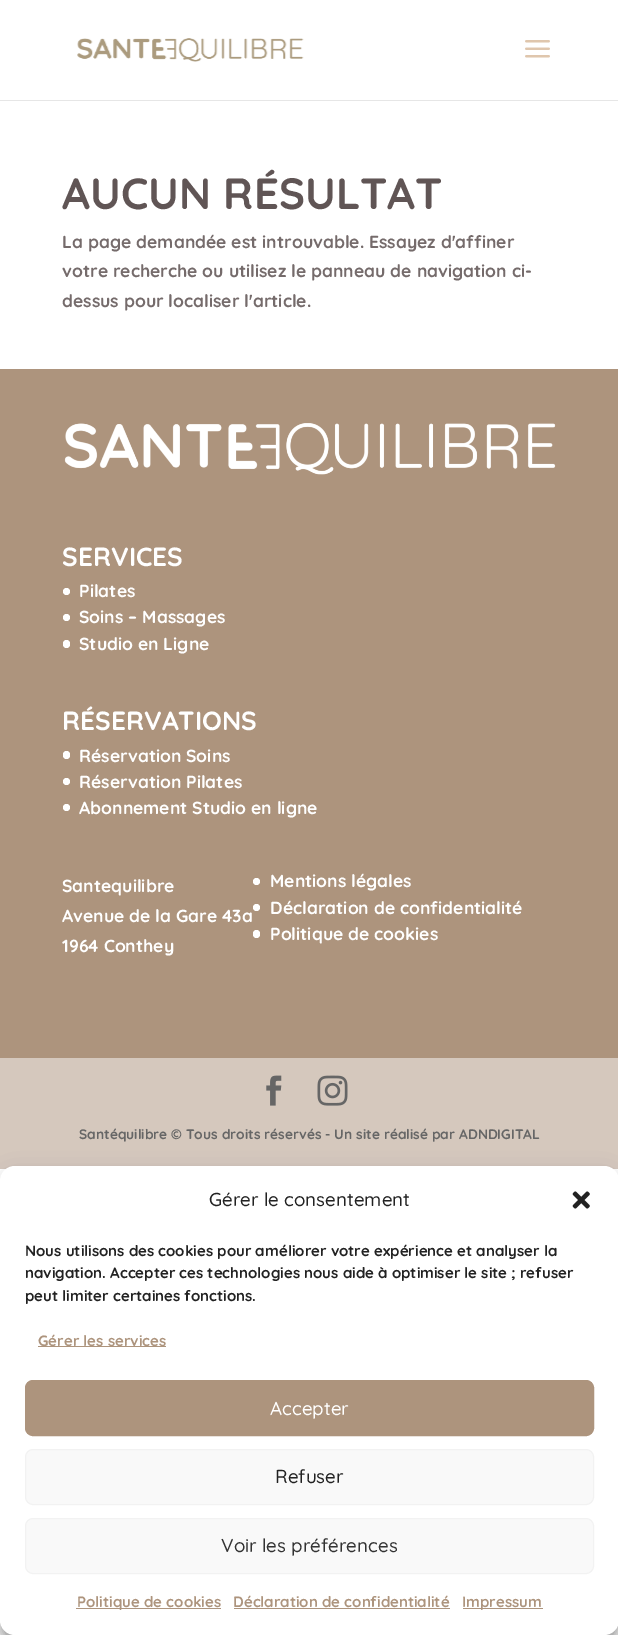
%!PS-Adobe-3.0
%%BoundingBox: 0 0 618 1635
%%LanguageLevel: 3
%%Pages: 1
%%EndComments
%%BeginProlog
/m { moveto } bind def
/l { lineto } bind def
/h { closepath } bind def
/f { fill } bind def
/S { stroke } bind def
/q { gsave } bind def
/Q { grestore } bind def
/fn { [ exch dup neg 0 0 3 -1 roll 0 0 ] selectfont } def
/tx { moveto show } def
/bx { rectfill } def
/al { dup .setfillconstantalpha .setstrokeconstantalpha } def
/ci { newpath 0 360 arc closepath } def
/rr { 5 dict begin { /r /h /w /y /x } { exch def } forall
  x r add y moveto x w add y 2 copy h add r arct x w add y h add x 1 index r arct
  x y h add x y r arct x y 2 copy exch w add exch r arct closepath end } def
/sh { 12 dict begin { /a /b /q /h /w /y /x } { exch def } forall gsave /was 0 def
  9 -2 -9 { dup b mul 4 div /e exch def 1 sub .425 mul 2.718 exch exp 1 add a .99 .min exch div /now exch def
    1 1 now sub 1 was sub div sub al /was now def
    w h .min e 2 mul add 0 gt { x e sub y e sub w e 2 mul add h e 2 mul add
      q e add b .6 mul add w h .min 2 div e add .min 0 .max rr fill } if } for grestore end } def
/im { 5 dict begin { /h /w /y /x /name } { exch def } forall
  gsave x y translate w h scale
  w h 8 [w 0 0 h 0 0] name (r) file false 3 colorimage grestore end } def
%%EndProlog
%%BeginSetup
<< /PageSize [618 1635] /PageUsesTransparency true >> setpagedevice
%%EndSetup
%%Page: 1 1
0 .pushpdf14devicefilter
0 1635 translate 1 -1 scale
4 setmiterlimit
1 setgray
0 0 618 1635 bx
0.902 setgray
0 100 m 0 101 l 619 101 l 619 1 l 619 100 l h f
(image0.raw) 77 38 227 24 im
(image1.raw) 525 40 25 18 im
/Quicksand-Bold 43.75 fn
0.376 0.333 0.333 setrgbcolor
(AUCUN RÉSULTAT) 62 209 tx
/Quicksand-Bold 17.5 fn
0.459 0.42 0.42 setrgbcolor
(La page demandée est introuvable. Essayez d'affiner) 62 248 tx
(votre recherche ou utilisez le panneau de navigation ci-) 62 277 tx
(dessus pour localiser l'article.) 62 307 tx
0.678 0.58 0.49 setrgbcolor
0 369 618 689 bx
(image2.raw) 64 423 492 52 im
/Quicksand-Bold 26.25 fn
1 setgray
(SERVICES) 62 566 tx
66.5 591.5 3.5 ci f
/Quicksand-Bold 17.5 fn
(Pilates) 79 597 tx
66.5 617.5 3.5 ci f
(Soins – Massages) 79 623 tx
63 640 7 8 3.5 rr f
(Studio en Ligne) 79 650 tx
/Quicksand-Bold 26.25 fn
(RÉSERVATIONS) 62 730 tx
63 751 7 8 3.5 rr f
/Quicksand-Bold 17.5 fn
(Réservation Soins) 79 762 tx
66.5 781.5 3.5 ci f
(Réservation Pilates) 79 788 tx
66.5 807.5 3.5 ci f
(Abonnement Studio en ligne) 79 814 tx
(Santequilibre) 62 892 tx
(Avenue de la Gare 43a) 62 922 tx
(1964 Conthey) 62 952 tx
256.5 881.5 3.5 ci f
(Mentions légales) 270 887 tx
256.5 907.5 3.5 ci f
(Déclaration de confidentialité) 270 914 tx
253 930 7 8 3.5 rr f
(Politique de cookies) 270 940 tx
0.835 0.784 0.741 setrgbcolor
0 1058 618 111 bx
(image3.raw) 266 1075 16 31 im
(image4.raw) 317 1075 31 31 im
/Quicksand-Bold 13.75 fn
0.4 setgray
(Santéquilibre © Tous droits réservés - Un site réalisé par ADNDIGITAL) 79 1139 tx
0 setgray
0 1174 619 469 15 4 0.23 sh
0 1179 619 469 15 12.5 0.19 sh
1 setgray
0 1166 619 469 15 rr f
/Quicksand-Medium 18.75 fn
0.133 setgray
(Gérer le consentement) 209 1206 tx
(image5.raw) 572 1191 18 18 im
/Quicksand-Bold 15 fn
(Nous utilisons des cookies pour améliorer votre expérience et analyser la) 25 1256 tx
(navigation. Accepter ces technologies nous aide à optimiser le site ; refuser) 25 1278 tx
(peut limiter certaines fonctions.) 25 1301 tx
0.678 0.58 0.49 setrgbcolor
38 1346 128 1 bx
(Gérer les services) 38 1346 tx
25.5 1380.5 568 55 7.5 rr q f Q
S
/Quicksand-Medium 18.75 fn
1 setgray
(Accepter) 270 1415 tx
0.976 setgray
25.5 1449.5 568 55 7.5 rr q f Q
0.949 setgray
S
0.133 setgray
(Refuser) 275 1483 tx
0.976 setgray
25.5 1518.5 568 55 7.5 rr q f Q
0.949 setgray
S
0.2 setgray
(Voir les préférences) 221 1552 tx
0.678 0.58 0.49 setrgbcolor
76 1608 145 1 bx
/Quicksand-Bold 15 fn
(Politique de cookies) 77 1607 tx
(Déclaration de confidentialité) 233 1607 tx
234 1608 216 1 bx
463 1608 80 1 bx
(Impressum) 462 1607 tx
.poppdf14devicefilter showpage
%%EOF
